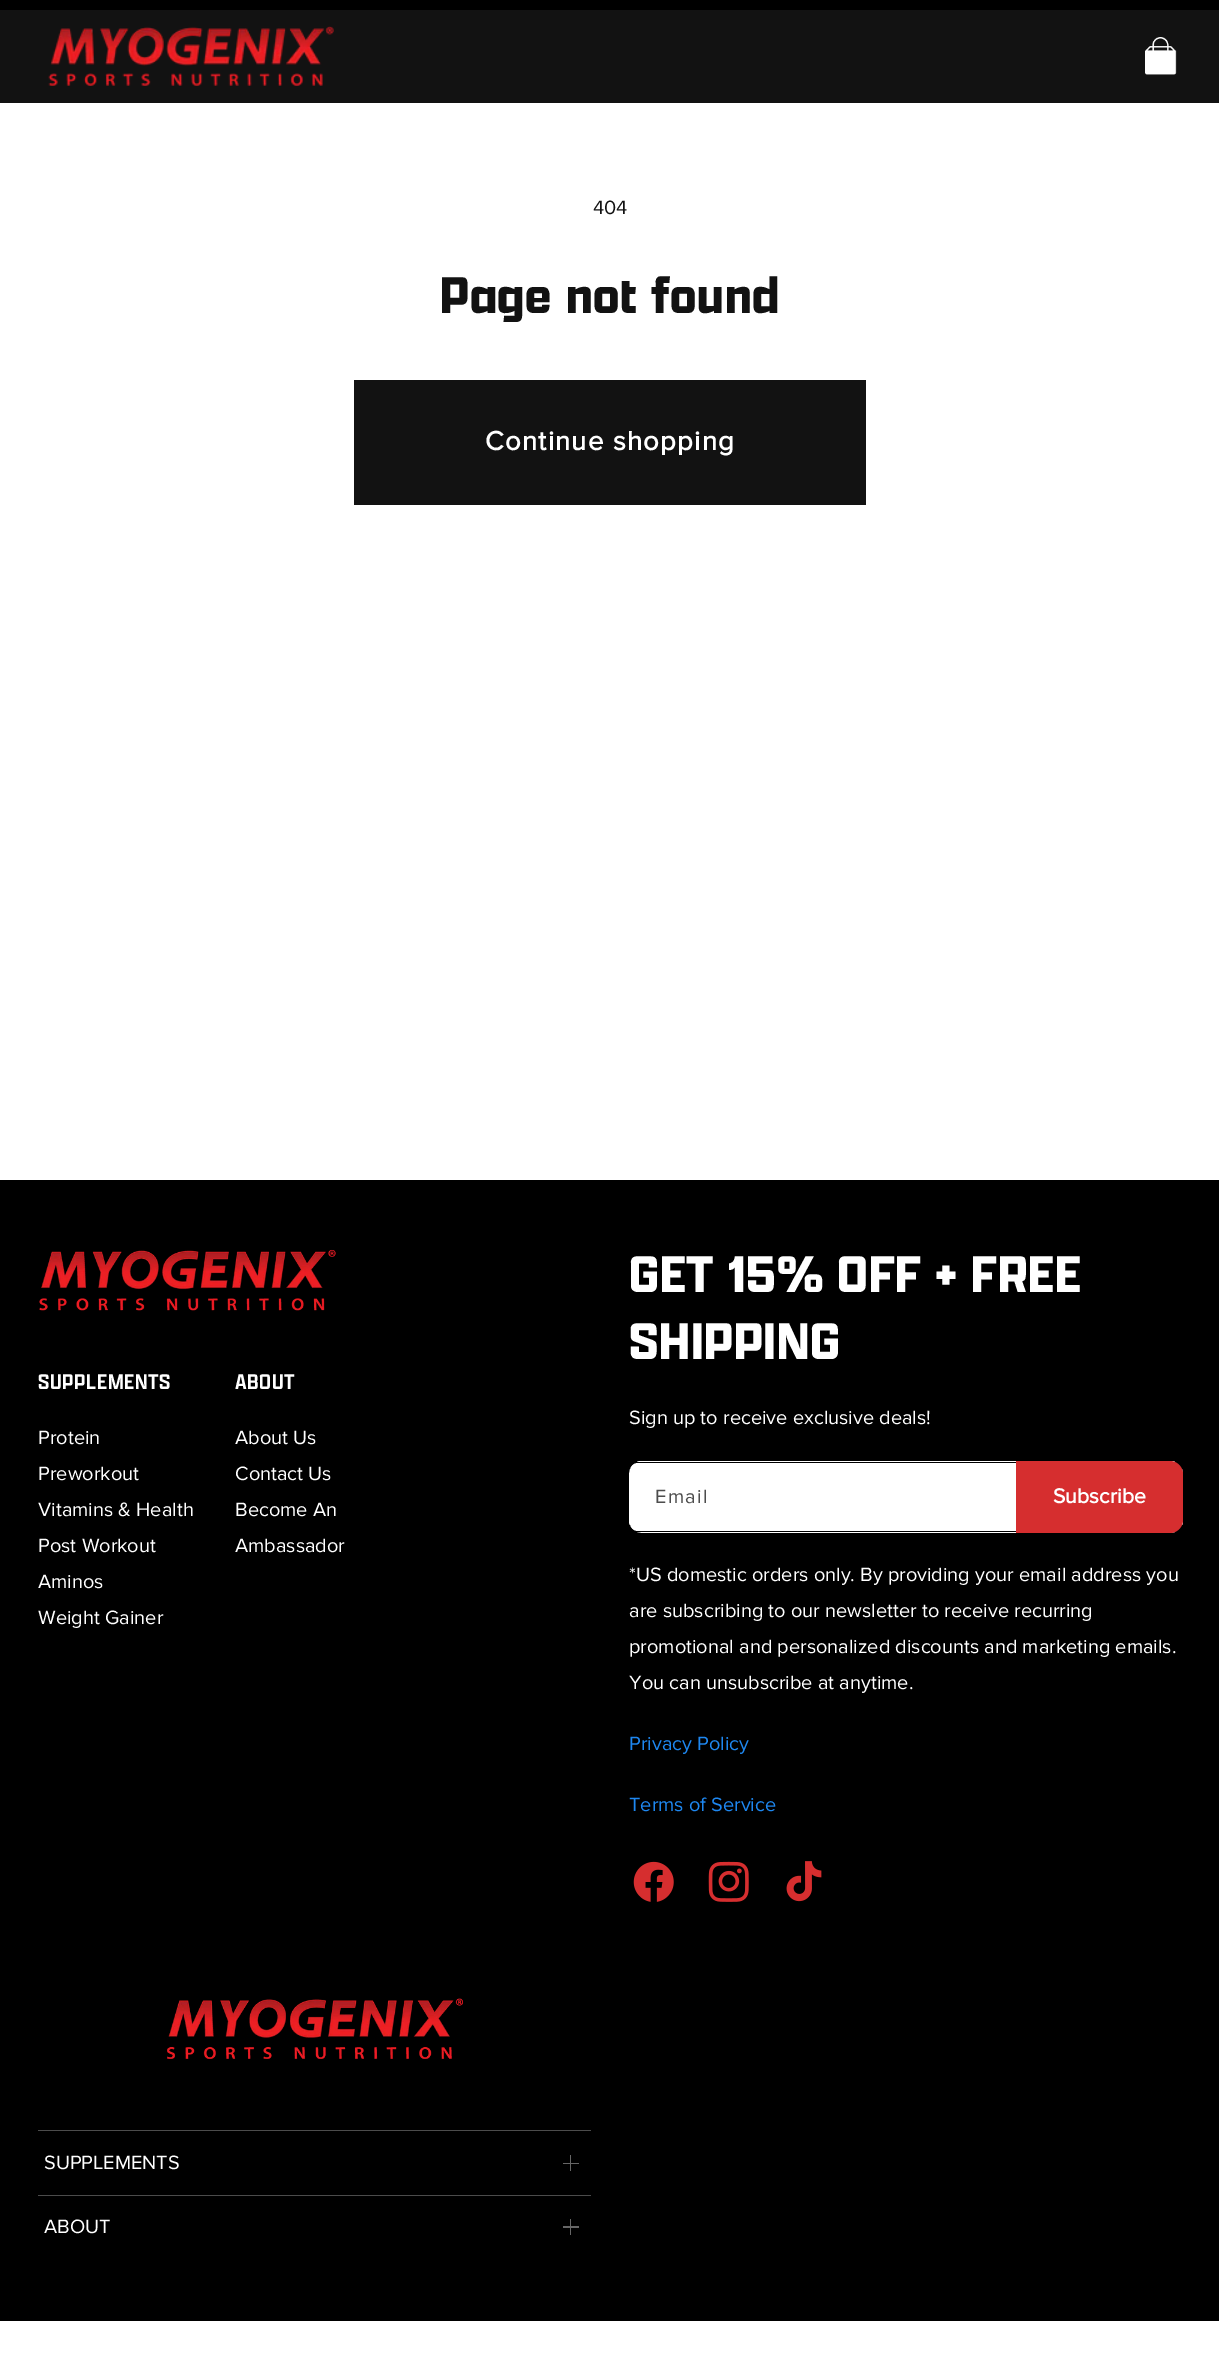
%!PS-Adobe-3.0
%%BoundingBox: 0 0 1219 2378
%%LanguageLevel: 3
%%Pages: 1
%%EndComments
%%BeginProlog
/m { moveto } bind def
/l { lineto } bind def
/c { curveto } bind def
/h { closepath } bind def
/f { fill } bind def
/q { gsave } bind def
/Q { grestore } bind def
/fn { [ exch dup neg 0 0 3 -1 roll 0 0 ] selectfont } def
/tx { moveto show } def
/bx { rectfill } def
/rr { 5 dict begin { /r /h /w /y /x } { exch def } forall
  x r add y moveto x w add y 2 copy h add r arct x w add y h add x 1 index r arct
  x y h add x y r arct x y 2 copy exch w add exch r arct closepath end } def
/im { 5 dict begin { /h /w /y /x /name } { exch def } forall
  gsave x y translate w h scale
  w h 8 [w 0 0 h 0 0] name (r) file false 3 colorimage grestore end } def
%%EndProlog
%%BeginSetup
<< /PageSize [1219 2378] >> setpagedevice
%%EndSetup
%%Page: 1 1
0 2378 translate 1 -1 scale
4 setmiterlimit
1 setgray
0 0 1219 2378 bx
0 setgray
0 0 1219 10 bx
0.071 setgray
0 10 1219 93 bx
(image0.raw) 48 26 286 60 im
(image1.raw) 1145 37 32 38 im
/ProximaNova-Regular 20 fn
(404) 593 214 tx
/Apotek-Bold 55 fn
440 313 m 0.75 0 (Page not found) ashow
354 380 512 125 bx
/ProximaNova-Bold 27.5 fn
1 setgray
485 450 m 1.25 0 (Continue shopping) ashow
0 setgray
0 1180 1219 1141 bx
(image2.raw) 39 1249 297 62 im
/Apotek-Medium 22.5 fn
1 setgray
38 1389 m 0.75 0 (SUPPLEMENTS) ashow
/ProximaNova-Regular 20 fn
(Protein) 38 1444 tx
(Preworkout) 38 1480 tx
(Vitamins & Health) 38 1516 tx
(Post Workout) 38 1552 tx
(Aminos) 38 1588 tx
(Weight Gainer) 38 1624 tx
/Apotek-Medium 22.5 fn
235 1389 m 0.75 0 (ABOUT) ashow
/ProximaNova-Regular 20 fn
(About Us) 235 1444 tx
(Contact Us) 235 1480 tx
(Become An) 235 1516 tx
(Ambassador) 235 1552 tx
/Apotek-Bold 55 fn
629 1292 m 0.75 0 (GET 15% OFF + FREE) ashow
629 1359 m 0.75 0 (SHIPPING) ashow
/ProximaNova-Regular 20 fn
(Sign up to receive exclusive deals!) 629 1424 tx
q
629 1461 554 72 13 rr clip newpath
630 1463 551 68 8 rr f
Q
0.302 setgray
655 1503 m 1.25 0 (Email) ashow
1 setgray
629 1474 m 629 1520 l 629 1522 629 1524 630 1525 c 630 1469 l h 638 1462 m 1175 1462 l 1174 1461 1172 1461 1170 1461 c 642 1461 l 640 1461 638 1461 637 1462 c h 1183 1474 m 1182 1469 l 1182 1525 l 1183 1524 1183 1522 1183 1520 c h 1170 1533 m 1175 1532 l 637 1532 l 642 1533 l h eofill
0.839 0.18 0.184 setrgbcolor
1016 1461 m 1170 1461 l 1177 1461 1183 1467 1183 1474 c 1183 1520 l 1183 1527 1177 1533 1170 1533 c 1016 1533 l h f
/ProximaNova-Bold 21.25 fn
1 setgray
(Subscribe) 1053 1503 tx
/ProximaNova-Regular 20 fn
(*US domestic orders only. By providing your email address you) 629 1581 tx
(are subscribing to our newsletter to receive recurring) 629 1617 tx
(promotional and personalized discounts and marketing emails.) 629 1653 tx
(You can unsubscribe at anytime.) 629 1689 tx
0.118 0.529 0.941 setrgbcolor
(Privacy Policy) 629 1750 tx
(Terms of Service) 629 1811 tx
(image3.raw) 633 1861 41 41 im
(image4.raw) 708 1861 41 41 im
(image5.raw) 786 1861 36 41 im
(image6.raw) 167 1998 296 61 im
0.298 setgray
38 2130 553 1 bx
1 setgray
(SUPPLEMENTS) 44 2169 tx
0.4 setgray
563 2163 16 1 bx
570 2155 1 16 bx
0.298 setgray
38 2195 553 1 bx
1 setgray
(ABOUT) 44 2233 tx
0.4 setgray
563 2226 16 2 bx
570 2219 1 16 bx
showpage
%%EOF
